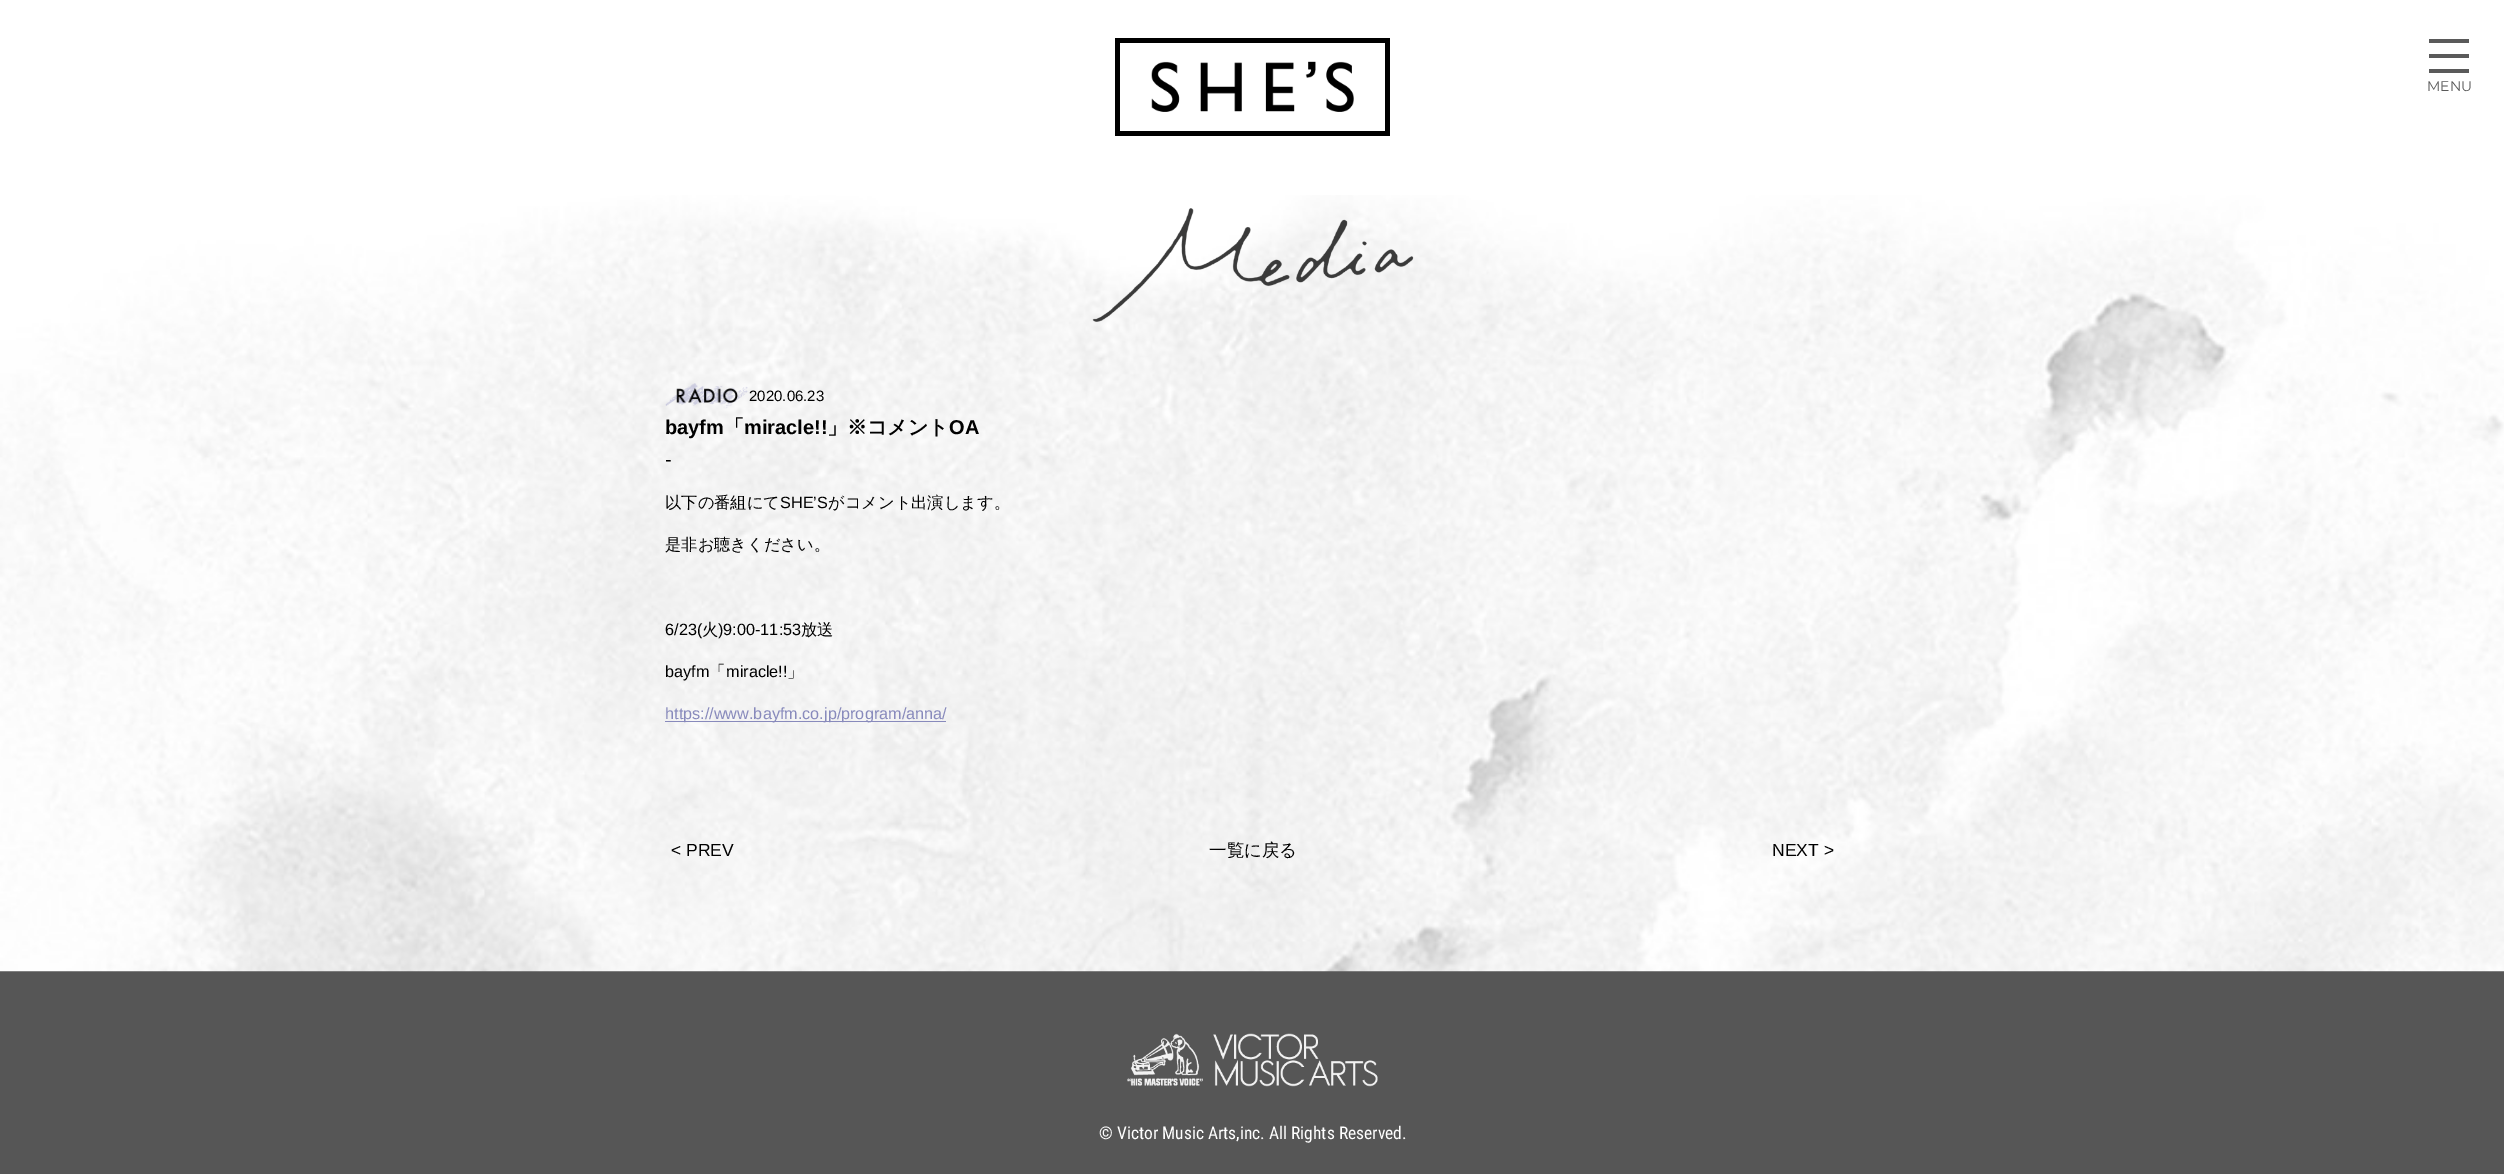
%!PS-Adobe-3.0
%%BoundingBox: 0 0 2504 1174
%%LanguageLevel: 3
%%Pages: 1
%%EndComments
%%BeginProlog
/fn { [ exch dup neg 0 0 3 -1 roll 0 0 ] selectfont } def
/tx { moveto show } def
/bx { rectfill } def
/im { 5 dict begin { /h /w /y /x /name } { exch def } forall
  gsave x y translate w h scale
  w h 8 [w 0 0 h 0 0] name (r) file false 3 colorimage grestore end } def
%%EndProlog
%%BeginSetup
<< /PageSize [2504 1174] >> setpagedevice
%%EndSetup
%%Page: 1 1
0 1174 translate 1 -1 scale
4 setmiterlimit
1 setgray
0 0 2504 1174 bx
0 setgray
1115 38 275 5 bx
1115 131 275 5 bx
1115 38 5 98 bx
1385 38 5 98 bx
(image0.raw) 1151 61 203 51 im
0.353 setgray
2429 39 40 4 bx
2429 54 40 4 bx
2429 69 40 4 bx
/Montserrat-Thin 14 fn
(MENU) 2427 91 tx
0.337 setgray
0 971 2504 203 bx
(image1.raw) 0 195 2504 777 im
(image2.raw) 1092 208 322 114 im
(image3.raw) 665 383 83 26 im
/LiberationSans-Regular 15 fn
0 setgray
(2020.06.23) 749 401 tx
/LiberationSans-Bold 20 fn
(bayfm) 665 434 tx
/WenQuanYiZenHei-Bold 20 fn
(「) 724 434 tx
/LiberationSans-Bold 20 fn
(miracle!!) 744 434 tx
/WenQuanYiZenHei-Bold 20 fn
(」※コメント) 827 434 tx
/LiberationSans-Bold 20 fn
(OA) 949 434 tx
/LiberationSans-Regular 20 fn
(-) 665 466 tx
/WenQuanYiZenHei-Medium 16.25 fn
(以下の番組にて) 665 508 tx
/LiberationSans-Regular 16.25 fn
(SHE’S) 780 508 tx
/WenQuanYiZenHei-Medium 16.25 fn
(がコメント出演します。) 828 508 tx
(是非お聴きください。) 665 550 tx
/LiberationSans-Regular 16.25 fn
(6/23\() 665 635 tx
/WenQuanYiZenHei-Medium 16.25 fn
(火) 702 635 tx
/LiberationSans-Regular 16.25 fn
(\)9:00-11:53) 718 635 tx
/WenQuanYiZenHei-Medium 16.25 fn
(放送) 801 635 tx
/LiberationSans-Regular 16.25 fn
(bayfm) 665 677 tx
/WenQuanYiZenHei-Medium 16.25 fn
(「) 709 677 tx
/LiberationSans-Regular 16.25 fn
(miracle!!) 726 677 tx
/WenQuanYiZenHei-Medium 16.25 fn
(」) 787 677 tx
0.533 0.541 0.737 setrgbcolor
665 721 281 1 bx
/LiberationSans-Regular 16.25 fn
(https://www.bayfm.co.jp/program/anna/) 665 719 tx
/LiberationSans-Regular 17.5 fn
0 setgray
(< PREV) 671 856 tx
/WenQuanYiZenHei-Medium 17.5 fn
(一覧に戻る) 1209 856 tx
/LiberationSans-Regular 17.5 fn
(NEXT >) 1772 856 tx
(image4.raw) 1127 1033 251 54 im
/RobotoCondensed-Regular 17.5 fn
1 setgray
(© Victor Music Arts,inc. All Rights Reserved.) 1099 1139 tx
showpage
%%EOF
